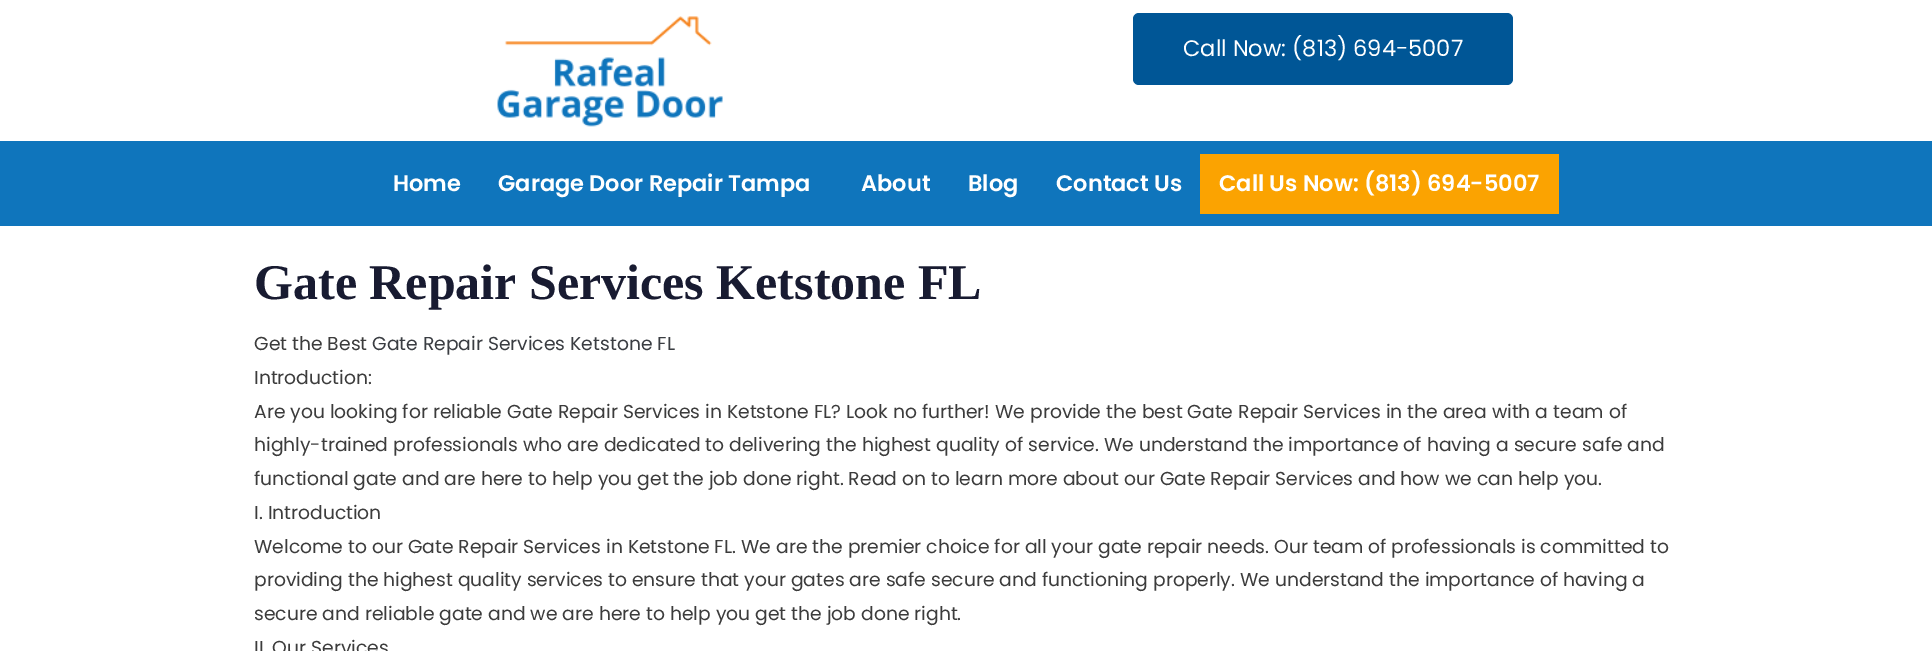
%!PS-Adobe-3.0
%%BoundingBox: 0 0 1932 651
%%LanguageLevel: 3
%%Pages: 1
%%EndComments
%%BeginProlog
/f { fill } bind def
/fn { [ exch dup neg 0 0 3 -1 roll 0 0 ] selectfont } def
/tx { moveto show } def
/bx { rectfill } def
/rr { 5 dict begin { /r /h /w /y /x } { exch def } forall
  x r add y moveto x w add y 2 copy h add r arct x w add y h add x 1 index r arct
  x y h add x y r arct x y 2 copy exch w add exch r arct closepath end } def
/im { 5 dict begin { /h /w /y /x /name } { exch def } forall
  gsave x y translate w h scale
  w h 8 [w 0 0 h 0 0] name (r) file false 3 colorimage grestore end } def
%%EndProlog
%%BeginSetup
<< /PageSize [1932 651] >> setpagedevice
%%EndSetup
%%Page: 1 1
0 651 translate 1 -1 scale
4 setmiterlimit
1 setgray
0 0 1932 651 bx
(image0.raw) 497 16 226 111 im
0 0.337 0.588 setrgbcolor
1133 13 380 72 6 rr f
/Poppins-Regular 22.5 fn
1 setgray
(Call Now: \(813\) 694-5007) 1183 56 tx
0.059 0.459 0.737 setrgbcolor
0 141 1932 85 bx
/Poppins-SemiBold 22.5 fn
1 setgray
(Home) 393 191 tx
(Garage Door Repair Tampa) 498 191 tx
(About) 861 191 tx
(Blog) 968 191 tx
(Contact Us) 1056 191 tx
0.984 0.639 0.004 setrgbcolor
1200 154 359 60 bx
1 setgray
(Call Us Now: \(813\) 694-5007) 1219 191 tx
/LiberationSerif-Bold 50 fn
0.094 0.106 0.192 setrgbcolor
(Gate Repair Services Ketstone FL) 254 299 tx
/Poppins-Regular 18.75 fn
0.235 setgray
(Get the Best) 254 350 tx
0.227 0.239 0.259 setrgbcolor
(Gate Repair Services Ketstone FL) 372 350 tx
0.235 setgray
(Introduction:) 254 384 tx
(Are you looking for reliable Gate Repair Services in Ketstone FL? Look no further! We provide the best Gate Repair Services in the area with a team of) 254 418 tx
(highly-trained professionals who are dedicated to delivering the highest quality of service. We understand the importance of having a secure safe and) 254 451 tx
(functional gate and are here to help you get the job done right. Read on to learn more about our Gate Repair Services and how we can help you.) 254 485 tx
(I. Introduction) 254 519 tx
(Welcome to our Gate Repair Services in Ketstone FL. We are the premier choice for all your gate repair needs. Our team of professionals is committed to) 254 553 tx
(providing the highest quality services to ensure that your gates are safe secure and functioning properly. We understand the importance of having a) 254 586 tx
(secure and reliable gate and we are here to help you get the job done right.) 254 620 tx
(II. Our Services) 254 654 tx
showpage
%%EOF
